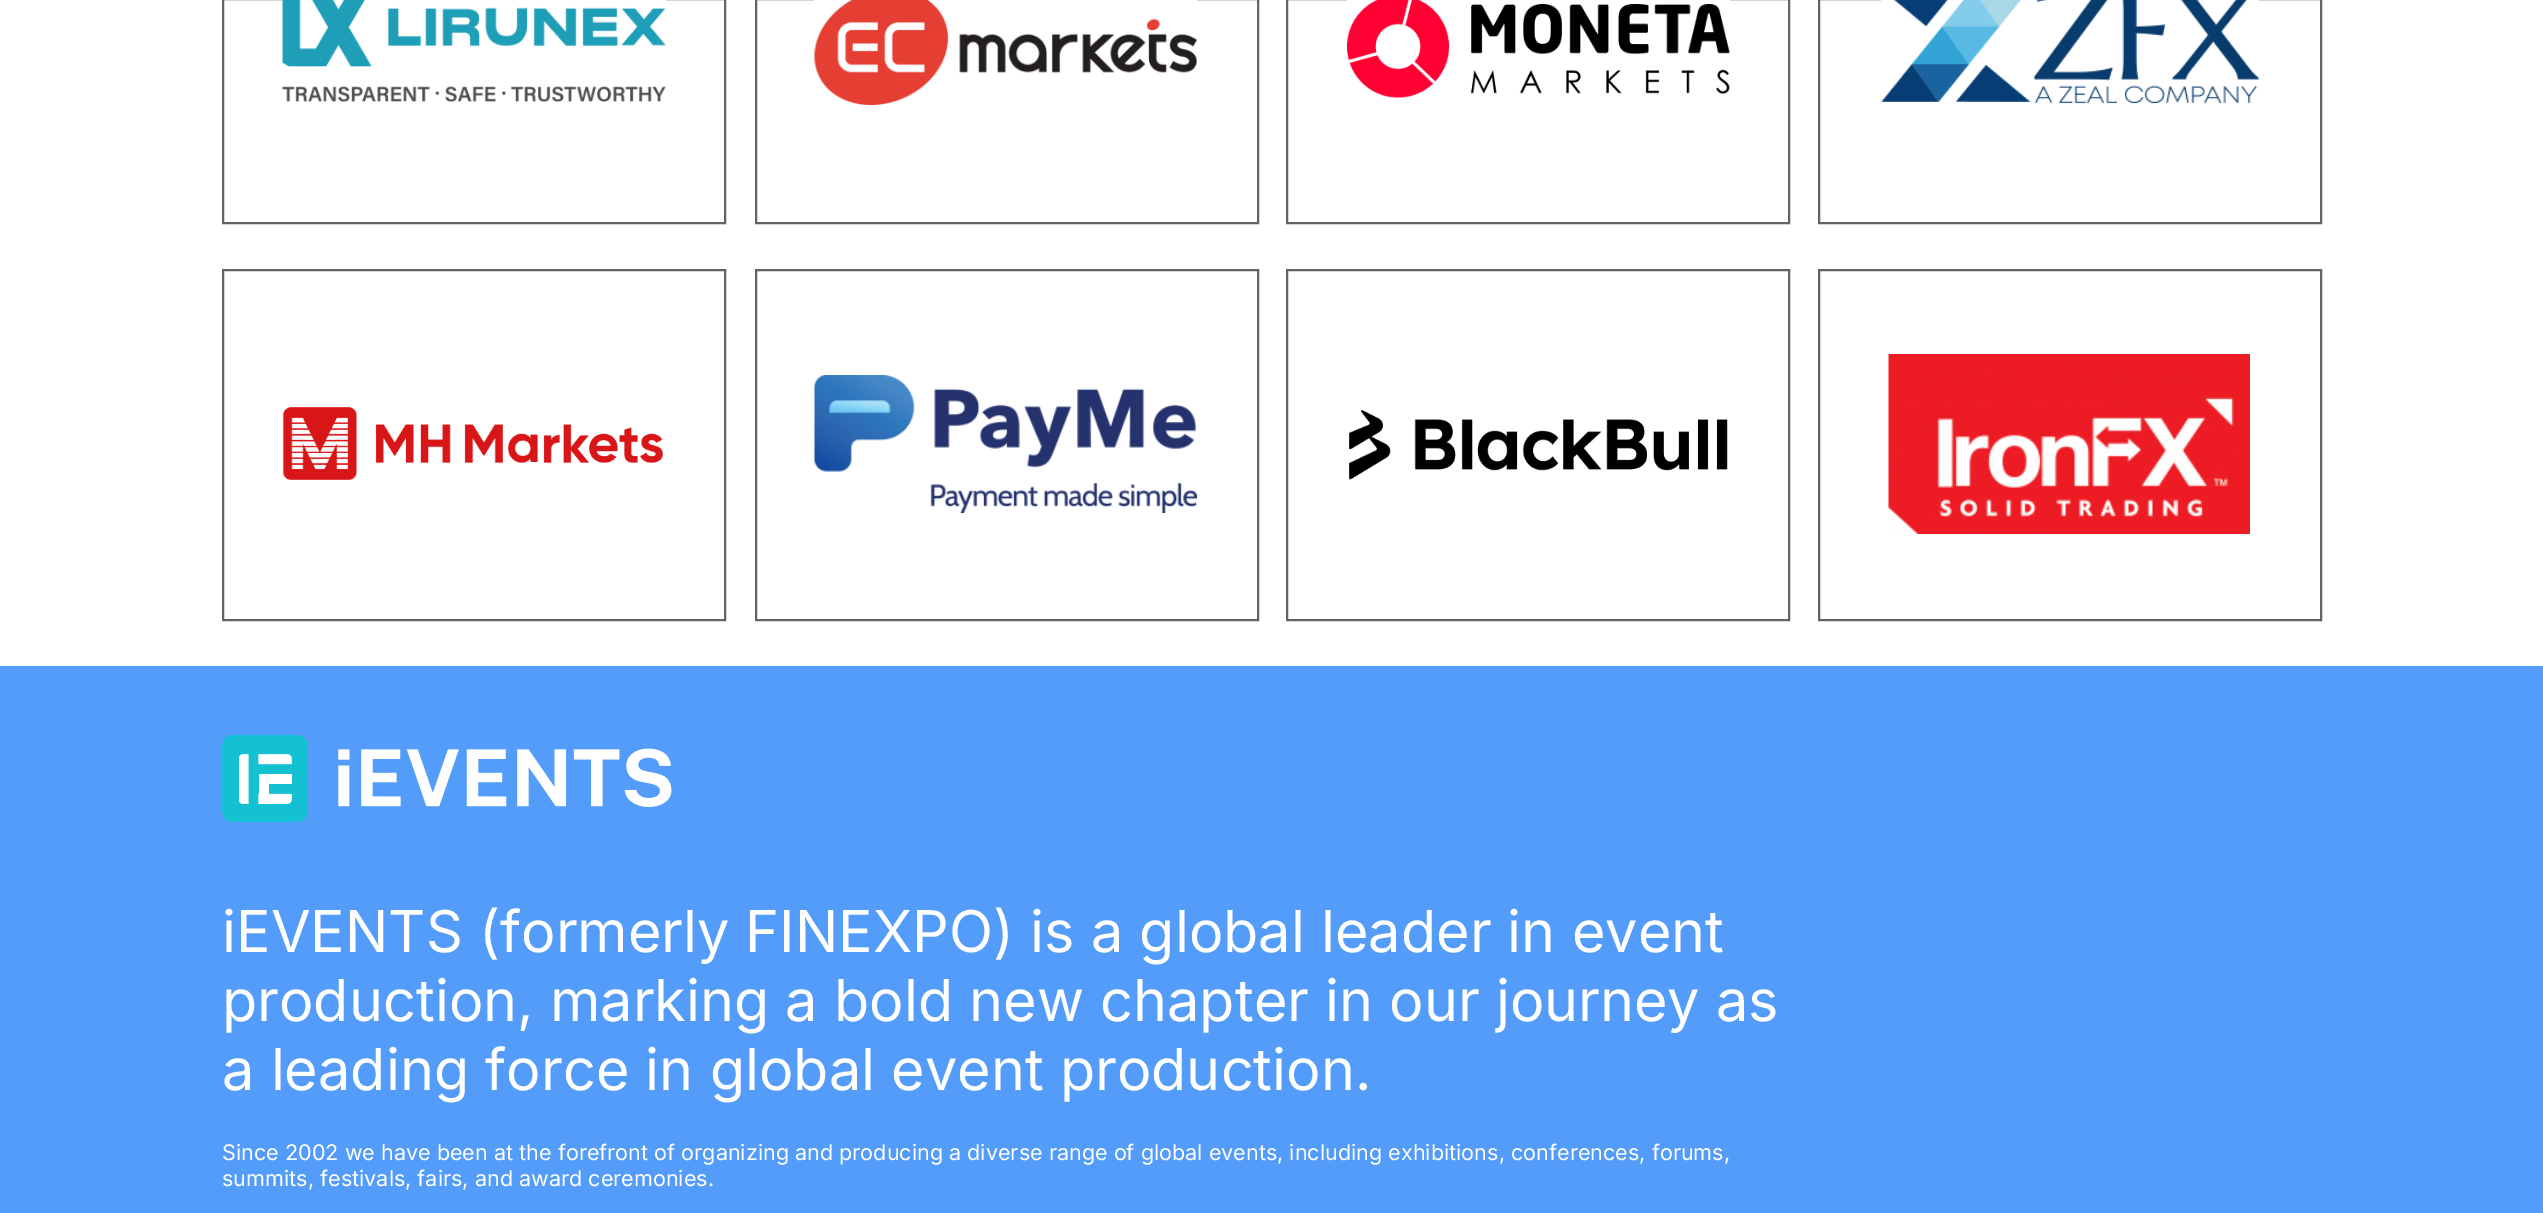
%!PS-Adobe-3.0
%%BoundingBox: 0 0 2543 1213
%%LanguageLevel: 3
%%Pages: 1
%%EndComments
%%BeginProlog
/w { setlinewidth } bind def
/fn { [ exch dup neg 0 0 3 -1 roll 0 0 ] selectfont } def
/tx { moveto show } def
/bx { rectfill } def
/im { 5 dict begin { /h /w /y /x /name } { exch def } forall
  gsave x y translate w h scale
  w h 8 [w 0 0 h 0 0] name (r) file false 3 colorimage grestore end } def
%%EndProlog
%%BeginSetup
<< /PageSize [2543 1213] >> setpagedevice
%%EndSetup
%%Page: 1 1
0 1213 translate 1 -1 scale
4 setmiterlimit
1 setgray
0 0 2543 1213 bx
0.388 setgray
2 w
223 -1 502 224 rectstroke
(image0.raw) 282 0 384 102 im
756 -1 502 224 rectstroke
(image1.raw) 814 0 383 105 im
1287 -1 502 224 rectstroke
(image2.raw) 1347 0 383 98 im
1819 -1 502 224 rectstroke
(image3.raw) 1881 0 378 104 im
223 270 502 350 rectstroke
(image4.raw) 282 407 381 73 im
756 270 502 350 rectstroke
(image5.raw) 814 375 383 138 im
1287 270 502 350 rectstroke
(image6.raw) 1349 410 379 70 im
1819 270 502 350 rectstroke
(image7.raw) 1888 354 362 180 im
0.325 0.612 0.98 setrgbcolor
0 666 2543 547 bx
(image8.raw) 222 735 450 87 im
/Inter-Regular 57.6 fn
1 setgray
(iEVENTS \(formerly FINEXPO\) is a global leader in event) 222 952 tx
(production, marking a bold new chapter in our journey as) 222 1021 tx
(a leading force in global event production.) 222 1090 tx
/Inter-Regular 21.6 fn
(Since 2002 we have been at the forefront of organizing and producing a diverse range of global events, including exhibitions, conferences, forums,) 222 1160 tx
(summits, festivals, fairs, and award ceremonies.) 222 1186 tx
showpage
%%EOF
